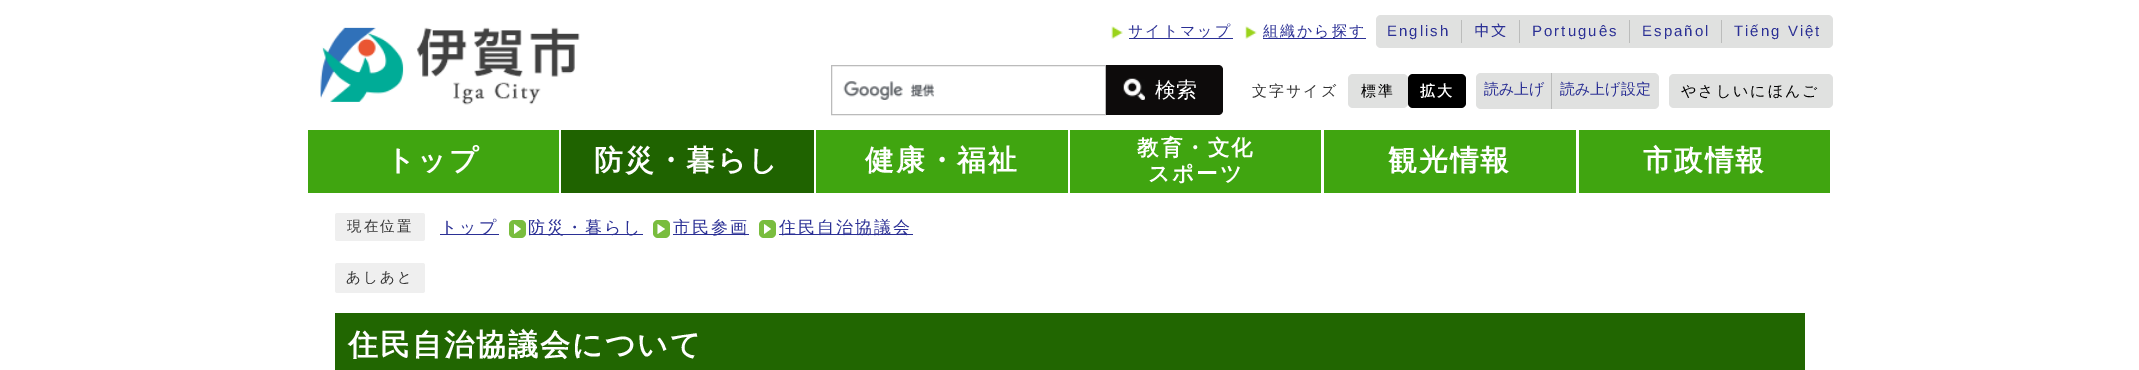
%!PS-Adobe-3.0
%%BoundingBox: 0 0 2139 370
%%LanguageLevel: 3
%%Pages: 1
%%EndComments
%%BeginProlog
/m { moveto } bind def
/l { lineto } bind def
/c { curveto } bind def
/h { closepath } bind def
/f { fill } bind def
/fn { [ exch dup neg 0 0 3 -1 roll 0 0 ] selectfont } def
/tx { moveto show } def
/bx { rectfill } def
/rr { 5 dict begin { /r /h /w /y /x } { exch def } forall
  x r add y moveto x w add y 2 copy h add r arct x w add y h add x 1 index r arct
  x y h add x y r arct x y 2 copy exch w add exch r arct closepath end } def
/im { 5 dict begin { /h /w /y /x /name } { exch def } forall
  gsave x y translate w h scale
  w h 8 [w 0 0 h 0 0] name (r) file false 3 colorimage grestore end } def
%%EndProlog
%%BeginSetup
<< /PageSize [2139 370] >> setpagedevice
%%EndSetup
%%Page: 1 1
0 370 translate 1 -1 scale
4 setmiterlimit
1 setgray
0 0 2139 370 bx
(image0.raw) 320 27 260 78 im
(image1.raw) 1111 26 12 13 im
0.169 0.188 0.584 setrgbcolor
1129 38 104 1 bx
/WenQuanYiZenHei-Medium 15 fn
1128 36 m 2 0 (サイトマップ) ashow
(image2.raw) 1245 26 12 13 im
1263 38 103 1 bx
1263 36 m 2 0 (組織から探す) ashow
0.878 0.882 0.878 setrgbcolor
1376 15 457 33 5 rr f
/LiberationSans-Regular 15 fn
0.169 0.188 0.584 setrgbcolor
1387 36 m 2 0 (English) ashow
0.733 0.737 0.733 setrgbcolor
1461 20 1 23 bx
/NotoSansCJKSC-Regular 15 fn
0.169 0.188 0.584 setrgbcolor
1474 36 m 2 0 (中文) ashow
0.733 0.737 0.733 setrgbcolor
1519 20 1 23 bx
/LiberationSans-Regular 15 fn
0.169 0.188 0.584 setrgbcolor
1532 36 m 2 0 (Português) ashow
0.733 0.737 0.733 setrgbcolor
1629 20 1 23 bx
0.169 0.188 0.584 setrgbcolor
1642 36 m 2 0 (Español) ashow
0.733 0.737 0.733 setrgbcolor
1721 20 1 23 bx
0.169 0.188 0.584 setrgbcolor
1734 36 m 2 0 (Tiếng Việt) ashow
(image3.raw) 843 81 92 19 im
0.733 setgray
831.5 65.5 274 49 rectstroke
0.051 0.043 0.043 setrgbcolor
1106 65 m 1218 65 l 1221 65 1223 67 1223 70 c 1223 110 l 1223 113 1221 115 1218 115 c 1106 115 l h f
(image4.raw) 1123 78 22 22 im
/WenQuanYiZenHei-Medium 21 fn
1 setgray
(検索) 1155 97 tx
/WenQuanYiZenHei-Medium 15 fn
0.2 setgray
1252 96 m 2 0 (文字サイズ) ashow
0.878 0.882 0.878 setrgbcolor
1348 74 60 34 5 rr f
0 setgray
1361 96 m 2 0 (標準) ashow
1408 74 58 34 5 rr f
/WenQuanYiZenHei-Bold 15 fn
1 setgray
1420 96 m 2 0 (拡大) ashow
0.878 0.882 0.878 setrgbcolor
1476 73 183 36 5 rr f
0.733 0.737 0.733 setrgbcolor
1551 73 1 36 bx
/WenQuanYiZenHei-Medium 15 fn
0.169 0.188 0.584 setrgbcolor
(読み上げ) 1484 94 tx
(読み上げ設定) 1560 94 tx
0.878 0.882 0.878 setrgbcolor
1669 74 164 34 5 rr f
0 setgray
1681 96 m 2 0 (やさしいにほんご) ashow
0.251 0.647 0.063 setrgbcolor
308 130 251 63 bx
/WenQuanYiZenHei-Bold 28.75 fn
1 setgray
386 170 m 2 0 (トップ) ashow
0.122 0.388 0 setrgbcolor
561 130 253 63 bx
1 setgray
594 170 m 2 0 (防災・暮らし) ashow
0.251 0.647 0.063 setrgbcolor
816 130 252 63 bx
1 setgray
865 170 m 2 0 (健康・福祉) ashow
0.251 0.647 0.063 setrgbcolor
1070 130 251 63 bx
/WenQuanYiZenHei-Bold 21.5 fn
1 setgray
1137 155 m 2 0 (教育・文化) ashow
1148 181 m 2 0 (スポーツ) ashow
0.251 0.647 0.063 setrgbcolor
1324 130 252 63 bx
/WenQuanYiZenHei-Bold 28.75 fn
1 setgray
1388 170 m 2 0 (観光情報) ashow
0.251 0.647 0.063 setrgbcolor
1579 130 251 63 bx
1 setgray
1643 170 m 2 0 (市政情報) ashow
0.937 setgray
335 213 90 28 2.5 rr f
/WenQuanYiZenHei-Medium 14.5 fn
0.2 setgray
347 231 m 2 0 (現在位置) ashow
0.169 0.188 0.584 setrgbcolor
440 234 59 1 bx
/WenQuanYiZenHei-Medium 17 fn
440 233 m 2 0 (トップ) ashow
0.475 0.741 0.243 setrgbcolor
509 220 17 18 5 rr f
1 setgray
514 234 m 514 224 l 521 229 l h f
0.169 0.188 0.584 setrgbcolor
529 234 114 1 bx
528 233 m 2 0 (防災・暮らし) ashow
0.475 0.741 0.243 setrgbcolor
653 220 17 18 5 rr f
1 setgray
657.5 234 m 657.5 224 l 665 229 l h f
0.169 0.188 0.584 setrgbcolor
673 234 76 1 bx
673 233 m 2 0 (市民参画) ashow
0.475 0.741 0.243 setrgbcolor
759 220 17 18 5 rr f
1 setgray
764 234 m 764 224 l 771 229 l h f
0.169 0.188 0.584 setrgbcolor
779 234 134 1 bx
779 233 m 2 0 (住民自治協議会) ashow
0.937 setgray
335 263 90 30 2.5 rr f
/WenQuanYiZenHei-Medium 14.5 fn
0.2 setgray
346 282 m 2 0 (あしあと) ashow
0.129 0.4 0.004 setrgbcolor
335 313 1470 57 bx
/WenQuanYiZenHei-Bold 30 fn
1 setgray
348 355 m 2 0 (住民自治協議会について) ashow
showpage
%%EOF
